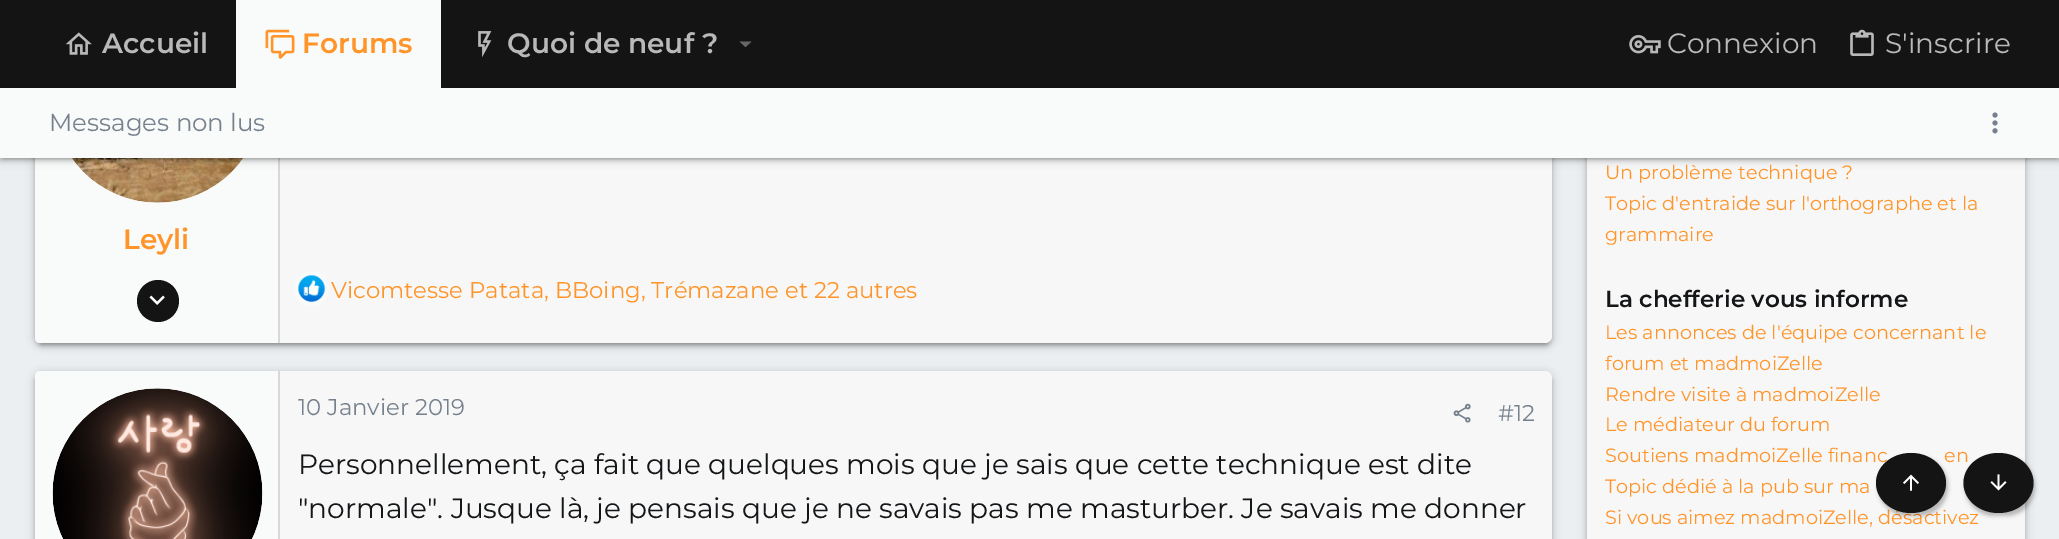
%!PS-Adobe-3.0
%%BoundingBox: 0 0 2059 539
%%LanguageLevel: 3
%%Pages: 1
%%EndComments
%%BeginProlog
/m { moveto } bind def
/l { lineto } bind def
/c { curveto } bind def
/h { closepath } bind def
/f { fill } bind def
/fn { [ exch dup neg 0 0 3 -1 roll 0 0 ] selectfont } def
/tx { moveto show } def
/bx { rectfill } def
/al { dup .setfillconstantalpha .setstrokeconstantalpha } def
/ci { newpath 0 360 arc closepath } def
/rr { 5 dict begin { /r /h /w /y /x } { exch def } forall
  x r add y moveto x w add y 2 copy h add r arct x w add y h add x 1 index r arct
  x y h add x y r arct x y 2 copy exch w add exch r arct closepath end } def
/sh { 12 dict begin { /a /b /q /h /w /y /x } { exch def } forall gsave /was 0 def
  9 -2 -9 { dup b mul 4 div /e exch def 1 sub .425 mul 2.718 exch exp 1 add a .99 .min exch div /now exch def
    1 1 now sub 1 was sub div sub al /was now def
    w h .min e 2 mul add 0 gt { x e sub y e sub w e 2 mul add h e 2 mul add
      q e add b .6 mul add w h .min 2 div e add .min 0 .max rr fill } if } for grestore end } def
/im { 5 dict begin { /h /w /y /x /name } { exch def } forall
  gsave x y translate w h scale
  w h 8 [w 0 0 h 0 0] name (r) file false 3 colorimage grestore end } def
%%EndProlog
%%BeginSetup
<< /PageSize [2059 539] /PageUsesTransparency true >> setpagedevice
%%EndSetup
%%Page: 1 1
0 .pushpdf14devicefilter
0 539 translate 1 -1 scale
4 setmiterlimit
0.925 0.937 0.945 setrgbcolor
0 0 2059 539 bx
0 setgray
35 -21 1517 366 7 4.5 0.2 sh
39 -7 1510 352 4 1 0.12 sh
35 -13 1517 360 7 2 0.14 sh
0.969 setgray
35 -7 1517 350 7 rr f
0.976 0.98 0.98 setrgbcolor
40 -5 m 280 -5 l 280 343 l 40 343 l 37 343 35 341 35 338 c 35 0 l 35 -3 37 -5 40 -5 c h f
0.969 setgray
158 98 105 ci f
0 setgray
1587 -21 438 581 7 4.5 0.2 sh
1587 -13 438 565 7 2 0.14 sh
0.078 setgray
0 0 2059 88 bx
(image0.raw) 65 32 27 23 im
/Montserrat-SemiBold 28 fn
0.725 setgray
(Accueil) 102 53 tx
0.847 setgray
278 158 2 185 bx
(image6.raw) 72 158 171 45 im
0.969 setgray
1587 158 438 381 bx
0 setgray
0 89 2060 70 0 4.5 0.2 sh
0 91 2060 70 0 2 0.14 sh
0.976 0.98 0.98 setrgbcolor
236 0 205 88 bx
(image1.raw) 265 29 30 30 im
1 0.58 0.161 setrgbcolor
(Forums) 302 53 tx
(image2.raw) 478 31 14 26 im
0.725 setgray
(Quoi de neuf ?) 507 53 tx
0.404 setgray
739.5 41.5 m 745.5 47 l 751.5 41.5 l h f
(image3.raw) 1629 35 32 19 im
/Montserrat-Regular 28 fn
0.725 setgray
(Connexion) 1667 53 tx
(image4.raw) 1850 29 24 27 im
(S'inscrire) 1885 53 tx
0 setgray
4 96 2052 63 0 1 0.12 sh
0.976 0.98 0.98 setrgbcolor
0 88 2059 70 bx
/Montserrat-Regular 24.5 fn
0.463 0.506 0.553 setrgbcolor
(Messages non lus) 49 131 tx
(image5.raw) 1992 112 6 22 im
/Montserrat-SemiBold 28 fn
1 0.58 0.161 setrgbcolor
(Leyli) 123 249 tx
0.078 setgray
158 301 21 ci f
(image7.raw) 149 295 16 10 im
0.976 0.98 0.98 setrgbcolor
311.5 288.5 17.5 ci f
(image8.raw) 298 275 27 27 im
/Montserrat-Regular 22.75 fn
1 0.58 0.161 setrgbcolor
(Vicomtesse Patata, BBoing, Trémazane et 22 autres) 331 298 tx
0 setgray
35 373 1517 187 7 4.5 0.2 sh
35 375 1517 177 7 2 0.14 sh
0.969 setgray
35 371 1517 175 7 rr f
0.976 0.98 0.98 setrgbcolor
40 371 m 280 371 l 280 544 l 40 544 l 37 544 35 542 35 539 c 35 376 l 35 373 37 371 40 371 c h f
0.847 setgray
278 371 2 168 bx
0.969 setgray
158 494 105 ci f
(image9.raw) 52 388 211 151 im
0.463 0.506 0.553 setrgbcolor
(10 Janvier 2019) 298 415 tx
(image10.raw) 1453 403 18 20 im
(#12) 1498 421 tx
/Montserrat-Regular 28 fn
0.078 0.086 0.094 setrgbcolor
(Personnellement, ça fait que quelques mois que je sais que cette technique est dite) 298 474 tx
("normale". Jusque là, je pensais que je ne savais pas me masturber. Je savais me donner) 298 518 tx
/Montserrat-Regular 19.25 fn
1 0.58 0.161 setrgbcolor
(Un problème technique ?) 1605 179 tx
(Topic d'entraide sur l'orthographe et la) 1605 210 tx
(grammaire) 1605 241 tx
/Montserrat-SemiBold 23.1 fn
0.078 0.086 0.094 setrgbcolor
(La chefferie vous informe) 1605 307 tx
/Montserrat-Regular 19.25 fn
1 0.58 0.161 setrgbcolor
(Les annonces de l'équipe concernant le) 1605 339 tx
(forum et madmoiZelle) 1605 370 tx
(Rendre visite à madmoiZelle) 1605 401 tx
(Le médiateur du forum) 1605 431 tx
(Soutiens madmoiZelle financ) 1605 462 tx
(en) 1944 462 tx
(Topic dédié à la pub sur ma) 1605 493 tx
(Si vous aimez madmoiZelle, désactivez) 1605 524 tx
0 setgray
1878 457 70 59 29.5 2 0.25 sh
0.078 setgray
1911 453 m 1930.5 453 1946 466.5 1946 483 c 1946 499.5 1930.5 513 1911 513 c 1891.5 513 1876 499.5 1876 483 c 1876 466.5 1891.5 453 1911 453 c h f
(image11.raw) 1903 474 16 17 im
0 setgray
1965 457 70 59 29.5 2 0.25 sh
0.078 setgray
1998.5 453 m 2018 453 2033.5 466.5 2033.5 483 c 2033.5 499.5 2018 513 1998.5 513 c 1979 513 1963.5 499.5 1963.5 483 c 1963.5 466.5 1979 453 1998.5 453 c h f
(image12.raw) 1990 474 17 17 im
.poppdf14devicefilter showpage
%%EOF
